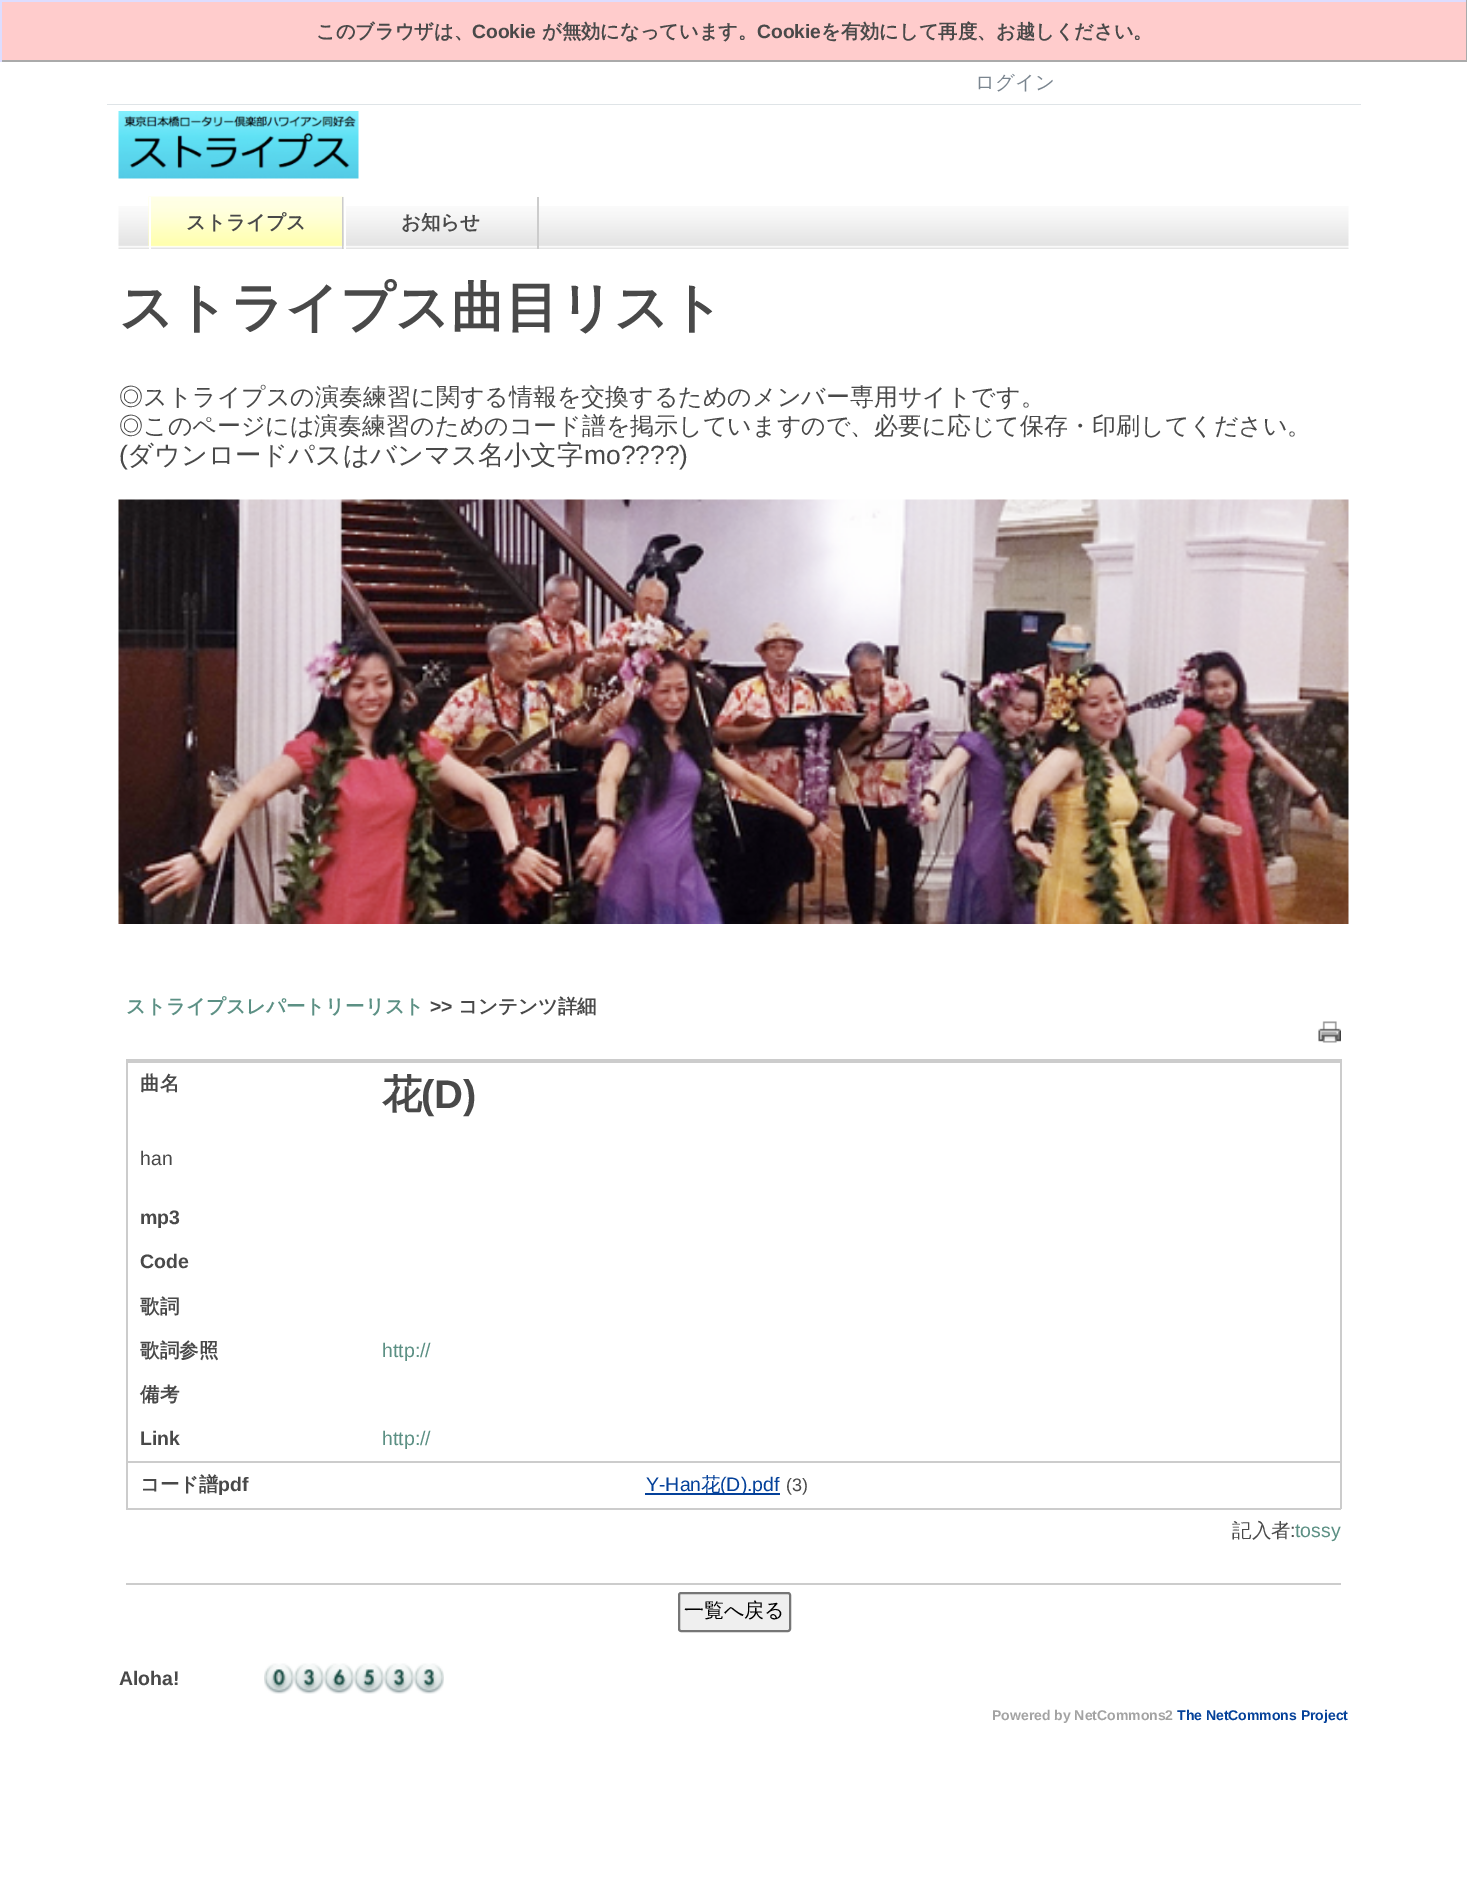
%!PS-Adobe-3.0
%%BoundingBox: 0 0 1467 1898
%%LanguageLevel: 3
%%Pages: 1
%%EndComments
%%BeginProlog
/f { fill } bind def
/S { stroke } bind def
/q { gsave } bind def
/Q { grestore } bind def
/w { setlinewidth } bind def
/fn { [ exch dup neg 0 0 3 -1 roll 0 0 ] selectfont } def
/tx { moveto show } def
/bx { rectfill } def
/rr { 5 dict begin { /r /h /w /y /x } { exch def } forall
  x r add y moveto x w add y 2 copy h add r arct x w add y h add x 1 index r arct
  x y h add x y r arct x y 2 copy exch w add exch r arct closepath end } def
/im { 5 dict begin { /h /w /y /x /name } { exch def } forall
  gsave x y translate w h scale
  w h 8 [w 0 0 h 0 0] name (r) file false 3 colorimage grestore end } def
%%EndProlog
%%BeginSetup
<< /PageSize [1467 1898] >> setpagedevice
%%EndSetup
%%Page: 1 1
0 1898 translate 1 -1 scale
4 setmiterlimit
1 setgray
0 0 1467 1898 bx
1 0.8 0.8 setrgbcolor
2 2 1464 58 bx
0.867 0.867 1 setrgbcolor
0 0 1467 2 bx
0.667 setgray
1466 0 1 62 bx
0 60 1467 2 bx
0.867 0.867 1 setrgbcolor
0 0 2 62 bx
/WenQuanYiZenHei-Bold 19.25 fn
0.286 setgray
(このブラウザは、) 316 38 tx
/LiberationSans-Bold 19.25 fn
(Cookie) 472 38 tx
/WenQuanYiZenHei-Bold 19.25 fn
(が無効になっています。) 542 38 tx
/LiberationSans-Bold 19.25 fn
(Cookie) 757 38 tx
/WenQuanYiZenHei-Bold 19.25 fn
(を有効にして再度、お越しください。) 821 38 tx
0.875 0.894 0.906 setrgbcolor
107 104 1254 1 bx
/WenQuanYiZenHei-Medium 19.5 fn
0.478 0.522 0.561 setrgbcolor
(ログイン) 975 89 tx
(image0.raw) 118 111 241 68 im
(image1.raw) 118 206 1231 43 im
(image2.raw) 148 196 196 51 im
0.8 setgray
342 197 2 52 bx
1 setgray
149 197 2 52 bx
/WenQuanYiZenHei-Bold 19.5 fn
0.286 setgray
(ストライプス) 186 229 tx
(image3.raw) 343 197 1 52 im
0.8 setgray
537 197 2 52 bx
1 setgray
344 206 2 43 bx
0.286 setgray
(お知らせ) 401 229 tx
/WenQuanYiZenHei-Bold 54 fn
(ストライプス曲目リスト) 119 326 tx
/WenQuanYiZenHei-Medium 24 fn
(◎ストライプスの演奏練習に関する情報を交換するためのメンバー専用サイトです。) 119 405 tx
(◎このページには演奏練習のためのコード譜を掲示していますので、必要に応じて保存・印刷してください。) 119 434 tx
/LiberationSans-Regular 26.4 fn
(\() 119 464 tx
/WenQuanYiZenHei-Medium 26.4 fn
(ダウンロードパスはバンマス名小文字) 127 464 tx
/LiberationSans-Regular 26.4 fn
(mo????\)) 584 464 tx
(image4.raw) 118 499 1231 425 im
/WenQuanYiZenHei-Bold 19.5 fn
0.361 0.565 0.518 setrgbcolor
(ストライプスレパートリーリスト) 126 1013 tx
/LiberationSans-Bold 19.5 fn
0.286 setgray
(>>) 430 1013 tx
/WenQuanYiZenHei-Bold 19.5 fn
(コンテンツ詳細) 458 1013 tx
(image5.raw) 1318 1021 23 22 im
0.8 setgray
126 1059 1215 2 bx
1340 1059 2 450 bx
126 1508 1215 2 bx
126 1059 2 450 bx
128 1061 1212 2 bx
0.286 setgray
(曲名) 140 1090 tx
/WenQuanYiZenHei-Bold 40 fn
(花) 382 1108 tx
/LiberationSans-Bold 40 fn
(\(D\)) 421 1108 tx
/LiberationSans-Regular 19.5 fn
(han) 140 1165 tx
/LiberationSans-Bold 19.5 fn
(mp3) 140 1224 tx
(Code) 140 1268 tx
/WenQuanYiZenHei-Bold 19.5 fn
(歌詞) 140 1313 tx
(歌詞参照) 140 1357 tx
/LiberationSans-Regular 19.5 fn
0.361 0.565 0.518 setrgbcolor
(http://) 382 1357 tx
/WenQuanYiZenHei-Bold 19.5 fn
0.286 setgray
(備考) 140 1401 tx
/LiberationSans-Bold 19.5 fn
(Link) 140 1445 tx
/LiberationSans-Regular 19.5 fn
0.361 0.565 0.518 setrgbcolor
(http://) 382 1445 tx
0.8 setgray
128 1461 1212 2 bx
/WenQuanYiZenHei-Bold 19.5 fn
0.286 setgray
(コード譜) 140 1491 tx
/LiberationSans-Bold 19.5 fn
(pdf) 218 1491 tx
/LiberationSans-Regular 19.5 fn
0.016 0.255 0.604 setrgbcolor
(Y-Han) 646 1491 tx
645 1493 135 2 bx
/WenQuanYiZenHei-Medium 19.5 fn
(花) 701 1491 tx
/LiberationSans-Regular 19.5 fn
(\(D\).pdf) 720 1491 tx
/LiberationSans-Regular 18 fn
0.286 setgray
(\(3\)) 786 1491 tx
/WenQuanYiZenHei-Medium 19.5 fn
(記入者) 1232 1537 tx
/LiberationSans-Regular 19.5 fn
(:) 1290 1537 tx
0.361 0.565 0.518 setrgbcolor
(tossy) 1295 1537 tx
0.8 setgray
126 1583 1215 2 bx
0.937 setgray
679 1593 111 38 2 rr q f Q
0.463 setgray
2 w
S
/WenQuanYiZenHei-Medium 20 fn
0 setgray
(一覧へ戻る) 684 1617 tx
/LiberationSans-Bold 19.5 fn
0.286 setgray
(Aloha!) 119 1685 tx
(image6.raw) 264 1663 30 31 im
(image7.raw) 294 1663 30 31 im
(image8.raw) 324 1663 30 31 im
(image9.raw) 354 1663 30 31 im
(image7.raw) 384 1663 30 31 im
(image7.raw) 414 1663 30 31 im
/LiberationSans-Bold 14 fn
0.639 setgray
(Powered by NetCommons2) 992 1720 tx
0.016 0.255 0.604 setrgbcolor
(The NetCommons Project) 1177 1720 tx
showpage
%%EOF
